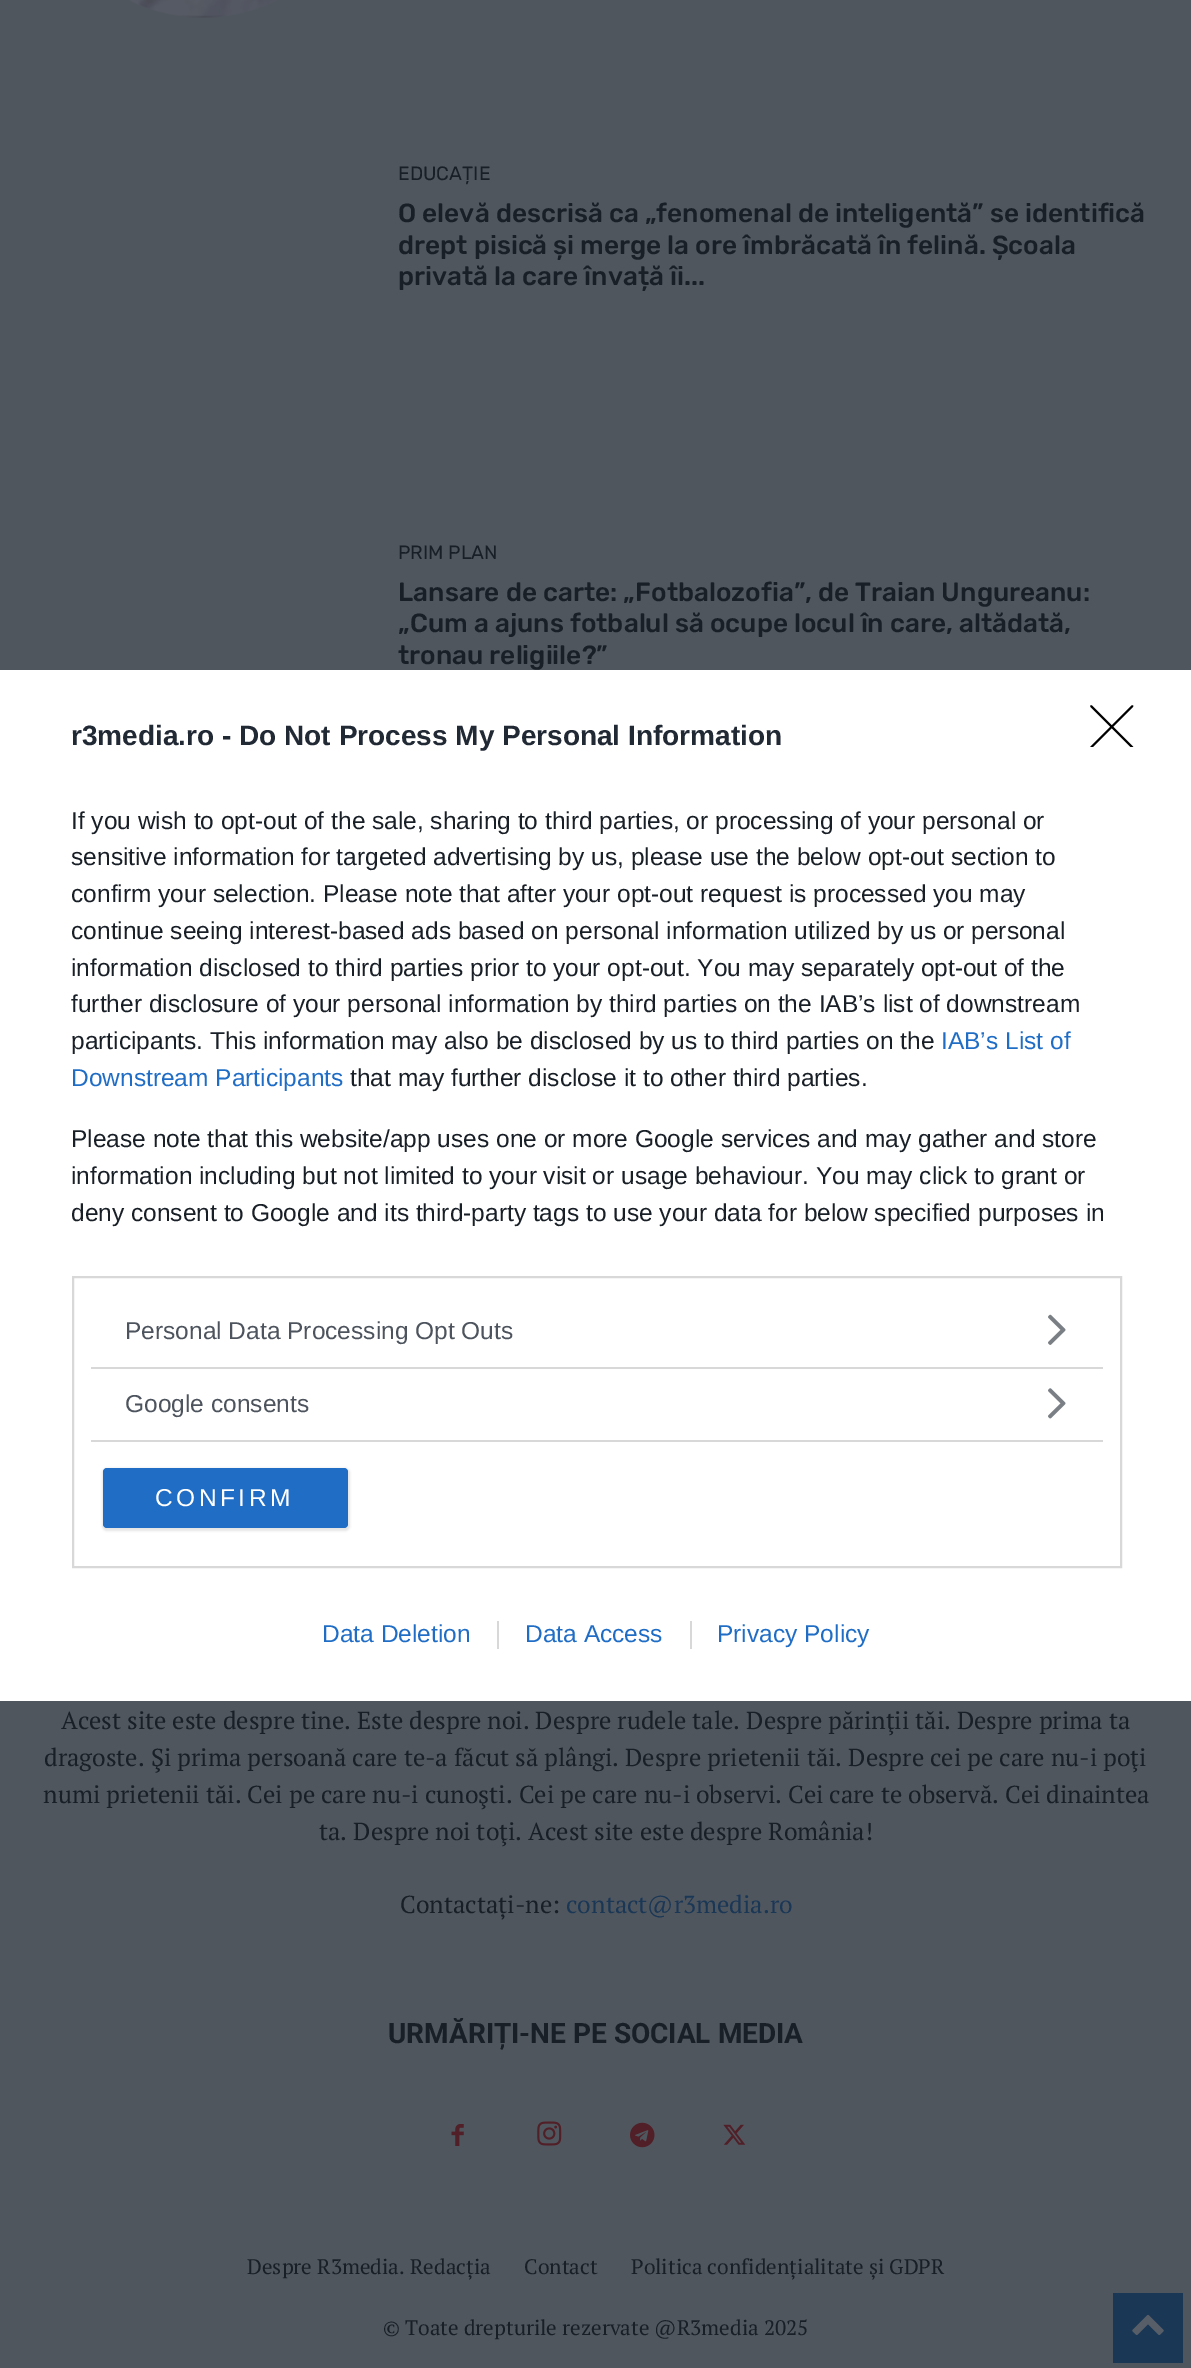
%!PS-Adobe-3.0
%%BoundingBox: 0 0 1191 2368
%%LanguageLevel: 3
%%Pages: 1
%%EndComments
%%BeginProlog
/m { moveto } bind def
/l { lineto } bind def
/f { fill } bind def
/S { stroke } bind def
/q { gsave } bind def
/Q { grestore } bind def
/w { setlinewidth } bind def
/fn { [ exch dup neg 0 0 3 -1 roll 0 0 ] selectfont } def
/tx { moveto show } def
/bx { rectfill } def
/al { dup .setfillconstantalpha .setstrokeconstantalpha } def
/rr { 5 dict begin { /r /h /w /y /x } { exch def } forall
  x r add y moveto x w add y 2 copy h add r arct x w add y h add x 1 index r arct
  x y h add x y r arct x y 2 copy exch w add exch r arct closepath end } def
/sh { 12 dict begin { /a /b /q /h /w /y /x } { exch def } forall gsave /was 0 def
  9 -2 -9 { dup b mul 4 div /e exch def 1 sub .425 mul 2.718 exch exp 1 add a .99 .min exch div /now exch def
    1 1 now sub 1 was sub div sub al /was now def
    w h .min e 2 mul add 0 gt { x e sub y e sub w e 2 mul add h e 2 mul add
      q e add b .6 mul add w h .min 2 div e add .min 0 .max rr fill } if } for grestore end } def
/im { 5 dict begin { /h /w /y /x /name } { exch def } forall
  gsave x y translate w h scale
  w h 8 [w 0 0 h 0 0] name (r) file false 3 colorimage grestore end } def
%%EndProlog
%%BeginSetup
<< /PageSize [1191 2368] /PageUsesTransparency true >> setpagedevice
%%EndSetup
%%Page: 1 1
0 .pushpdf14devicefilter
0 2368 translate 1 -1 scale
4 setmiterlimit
0.314 0.337 0.369 setrgbcolor
0 0 1191 2368 bx
(image0.raw) 129 0 148 18 im
/Rubik-Regular 19.25 fn
0.098 0.122 0.153 setrgbcolor
(EDUCAȚIE) 398 180 tx
/Rubik-Medium 26.25 fn
(O elevă descrisă ca „fenomenal de inteligentă” se identifică) 398 222 tx
(drept pisică și merge la ore îmbrăcată în felină. Școala) 398 254 tx
(privată la care învață îi...) 398 285 tx
/Rubik-Regular 19.25 fn
(PRIM PLAN) 398 559 tx
/Rubik-Medium 26.25 fn
(Lansare de carte: „Fotbalozofia”, de Traian Ungureanu:) 398 601 tx
(„Cum a ajuns fotbalul să ocupe locul în care, altădată,) 398 632 tx
(tronau religiile?”) 398 664 tx
/PTSerif-Regular 24.5 fn
(Acest site este despre tine. Este despre noi. Despre rudele tale. Despre părinţii tăi. Despre prima ta) 61 1729 tx
(dragoste. Şi prima persoană care te-a făcut să plângi. Despre prietenii tăi. Despre cei pe care nu-i poţi) 44 1766 tx
(numi prietenii tăi. Cei pe care nu-i cunoşti. Cei pe care nu-i observi. Cei care te observă. Cei dinaintea) 43 1803 tx
(ta. Despre noi toţi. Acest site este despre România!) 319 1840 tx
(Contactați-ne:) 400 1913 tx
0.102 0.216 0.337 setrgbcolor
(contact@r3media.ro) 566 1913 tx
/Roboto-Bold 28 fn
0.098 0.122 0.153 setrgbcolor
(URMĂRIȚI-NE PE SOCIAL MEDIA) 388 2043 tx
(image1.raw) 451 2124 13 22 im
(image2.raw) 537 2121 25 25 im
(image3.raw) 630 2122 25 26 im
(image4.raw) 723 2124 23 21 im
/PTSerif-Regular 21 fn
(Despre R3media. Redacția) 247 2274 tx
(Contact) 524 2274 tx
(Politica confidențialitate și GDPR) 631 2274 tx
(© Toate drepturile rezervate @R3media 2025) 383 2335 tx
1 setgray
0 670 1191 1031 bx
/LiberationSans-Bold 28 fn
0.129 0.161 0.204 setrgbcolor
(r3media.ro - Do Not Process My Personal Information) 71 745 tx
/LiberationSans-Regular 24.5 fn
0.098 0.122 0.153 setrgbcolor
(If you wish to opt-out of the sale, sharing to third parties, or processing of your personal or) 71 829 tx
(sensitive information for targeted advertising by us, please use the below opt-out section to) 71 865 tx
(confirm your selection. Please note that after your opt-out request is processed you may) 71 902 tx
(continue seeing interest-based ads based on personal information utilized by us or personal) 71 939 tx
(information disclosed to third parties prior to your opt-out. You may separately opt-out of the) 71 976 tx
(further disclosure of your personal information by third parties on the IAB’s list of downstream) 71 1012 tx
(participants. This information may also be disclosed by us to third parties on the) 71 1049 tx
0.125 0.427 0.773 setrgbcolor
(IAB’s List of) 941 1049 tx
(Downstream Participants) 71 1086 tx
0.098 0.122 0.153 setrgbcolor
(that may further disclose it to other third parties.) 350 1086 tx
(Please note that this website/app uses one or more Google services and may gather and store) 71 1147 tx
(information including but not limited to your visit or usage behaviour. You may click to grant or) 71 1184 tx
(deny consent to Google and its third-party tags to use your data for below specified purposes in) 71 1221 tx
0.847 setgray
2 w
73 1277 1048 290 rectstroke
91 1367 1012 2 bx
0.302 0.329 0.365 setrgbcolor
(Personal Data Processing Opt Outs) 125 1339 tx
(image5.raw) 1048 1314 18 31 im
0.847 setgray
91 1440 1012 2 bx
0.302 0.329 0.365 setrgbcolor
(Google consents) 125 1412 tx
(image6.raw) 1048 1388 18 31 im
0 setgray
102 1468 248 63 5 1 0.1 sh
0.125 0.427 0.773 setrgbcolor
103 1468 245 60 4 rr f
1 setgray
155 1506 m 3.5 0 (CONFIRM) ashow
q
1090 705 44 42 rectclip
0 setgray
1.8 w
1 setlinecap
1 setlinejoin
1091 706 m 1132.5 747.5 l 1132.5 706 m 1091 747.5 l S
Q
0.125 0.427 0.773 setrgbcolor
(Data Deletion) 322 1642 tx
(Data Access) 525 1642 tx
0.847 setgray
497 1621 2 28 bx
0.125 0.427 0.773 setrgbcolor
(Privacy Policy) 717 1642 tx
0.847 setgray
690 1621 2 28 bx
0.102 0.216 0.337 setrgbcolor
1113 2293 70 70 bx
(image7.raw) 1132 2314 32 21 im
.poppdf14devicefilter showpage
%%EOF
